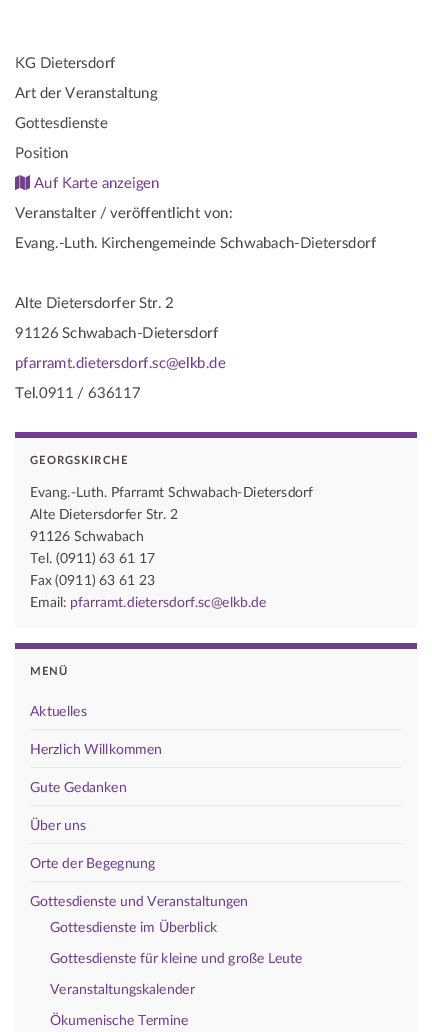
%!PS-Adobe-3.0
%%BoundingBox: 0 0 432 1032
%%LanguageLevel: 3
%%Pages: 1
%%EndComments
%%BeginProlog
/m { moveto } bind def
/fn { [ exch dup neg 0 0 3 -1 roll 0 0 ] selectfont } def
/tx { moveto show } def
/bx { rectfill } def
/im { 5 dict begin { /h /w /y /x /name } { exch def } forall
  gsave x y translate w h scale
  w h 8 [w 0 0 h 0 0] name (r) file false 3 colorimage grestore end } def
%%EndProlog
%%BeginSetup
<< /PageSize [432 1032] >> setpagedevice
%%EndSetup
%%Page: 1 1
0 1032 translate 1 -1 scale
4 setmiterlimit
1 setgray
0 0 432 1032 bx
/Lato-Regular 15 fn
0.29 0.278 0.294 setrgbcolor
(KG Dietersdorf) 15 68 tx
(Art der Veranstaltung) 15 98 tx
(Gottesdienste) 15 128 tx
(Position) 15 158 tx
(image0.raw) 15 175 15 16 im
0.443 0.243 0.541 setrgbcolor
(Auf Karte anzeigen) 34 188 tx
0.29 0.278 0.294 setrgbcolor
(Veranstalter / veröffentlicht von:) 15 218 tx
(Evang.-Luth. Kirchengemeinde Schwabach-Dietersdorf) 15 248 tx
(Alte Dietersdorfer Str. 2) 15 308 tx
(91126 Schwabach-Dietersdorf) 15 338 tx
0.443 0.243 0.541 setrgbcolor
(pfarramt.dietersdorf.sc@elkb.de) 15 368 tx
0.29 0.278 0.294 setrgbcolor
(Tel.0911 / 636117) 15 398 tx
0.976 setgray
15 438 402 190 bx
0.443 0.243 0.541 setrgbcolor
15 432 402 6 bx
/Lato-Bold 11.25 fn
0.29 0.278 0.294 setrgbcolor
30 464 m 1 0 (GEORGSKIRCHE) ashow
/Lato-Regular 14 fn
(Evang.-Luth. Pfarramt Schwabach-Dietersdorf) 30 497 tx
(Alte Dietersdorfer Str. 2) 30 519 tx
(91126 Schwabach) 30 541 tx
(Tel. \(0911\) 63 61 17) 30 563 tx
(Fax \(0911\) 63 61 23) 30 585 tx
(Email:) 30 607 tx
0.443 0.243 0.541 setrgbcolor
(pfarramt.dietersdorf.sc@elkb.de) 70 607 tx
0.976 setgray
15 649 402 383 bx
0.443 0.243 0.541 setrgbcolor
15 643 402 6 bx
/Lato-Bold 11.25 fn
0.29 0.278 0.294 setrgbcolor
30 675 m 1 0 (MENÜ) ashow
0.914 setgray
30 729 372 1 bx
/Lato-Regular 14 fn
0.443 0.243 0.541 setrgbcolor
(Aktuelles) 30 716 tx
0.914 setgray
30 767 372 1 bx
0.443 0.243 0.541 setrgbcolor
(Herzlich Willkommen) 30 754 tx
0.914 setgray
30 805 372 1 bx
0.443 0.243 0.541 setrgbcolor
(Gute Gedanken) 30 792 tx
0.914 setgray
30 843 372 1 bx
0.443 0.243 0.541 setrgbcolor
(Über uns) 30 830 tx
0.914 setgray
30 881 372 1 bx
0.443 0.243 0.541 setrgbcolor
(Orte der Begegnung) 30 868 tx
(Gottesdienste und Veranstaltungen) 30 906 tx
(Gottesdienste im Überblick) 50 932 tx
(Gottesdienste für kleine und große Leute) 50 963 tx
(Veranstaltungskalender) 50 994 tx
(Ökumenische Termine) 50 1025 tx
showpage
%%EOF
